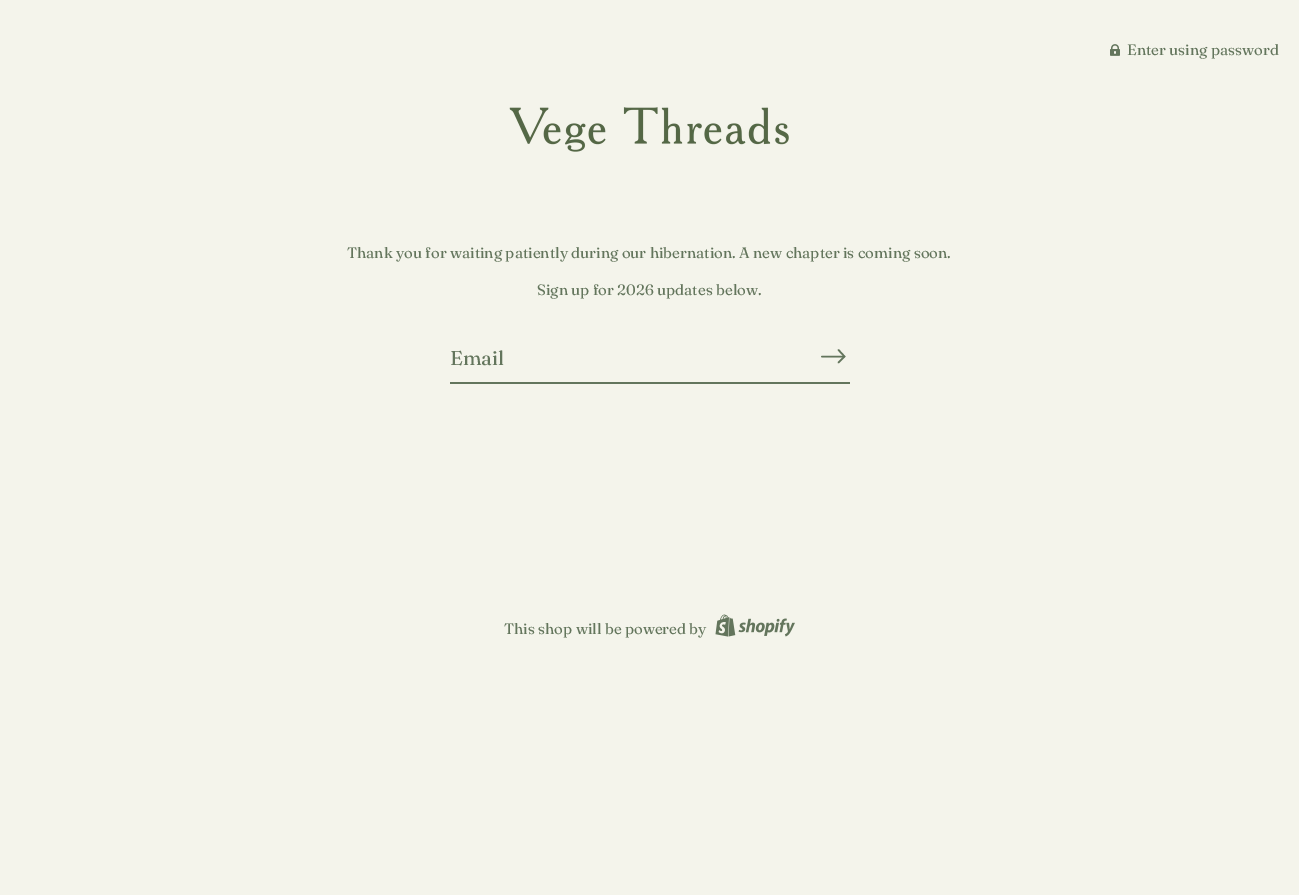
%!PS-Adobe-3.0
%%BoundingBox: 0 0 1299 895
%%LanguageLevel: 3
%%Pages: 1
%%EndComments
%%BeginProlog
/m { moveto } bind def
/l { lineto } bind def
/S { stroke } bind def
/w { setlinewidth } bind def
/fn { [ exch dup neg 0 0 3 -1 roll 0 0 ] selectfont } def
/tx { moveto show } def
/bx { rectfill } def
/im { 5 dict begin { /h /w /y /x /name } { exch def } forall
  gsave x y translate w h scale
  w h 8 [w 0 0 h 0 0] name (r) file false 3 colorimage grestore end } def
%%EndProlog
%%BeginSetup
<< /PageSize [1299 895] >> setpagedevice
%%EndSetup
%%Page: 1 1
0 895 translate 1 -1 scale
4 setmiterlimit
0.957 0.957 0.922 setrgbcolor
0 0 1299 895 bx
(image0.raw) 1110 44 10 12 im
/Fraunces-Regular 15 fn
0.388 0.459 0.361 setrgbcolor
(Enter using password) 1127 55 tx
(image1.raw) 509 107 280 45 im
(Thank you for waiting patiently during our hibernation. A new chapter is coming soon.) 347 258 tx
(Sign up for 2026 updates below.) 537 295 tx
/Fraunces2-Regular 20 fn
(Email) 450 365 tx
1.6 w
1 setlinecap
838.5 362.5 m 844.5 356.5 l 838.5 350 l S
1 setlinejoin
844 356.5 m 822 356.5 l S
450 382 400 2 bx
/Fraunces-Regular 15 fn
(This shop will be powered by) 504 634 tx
(image2.raw) 715 614 80 23 im
showpage
%%EOF
